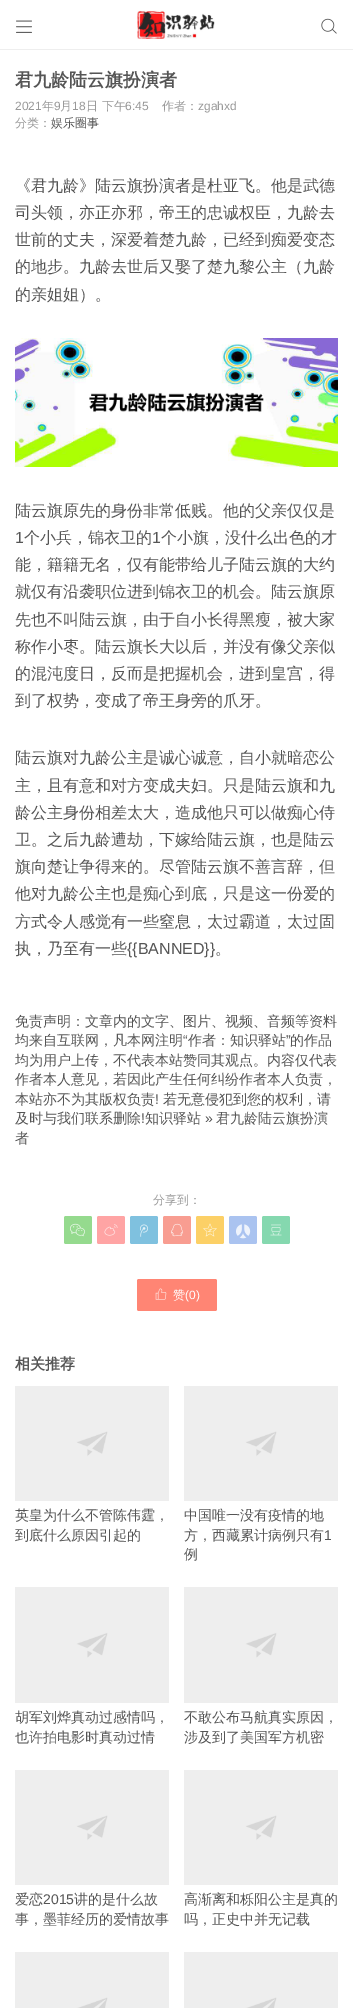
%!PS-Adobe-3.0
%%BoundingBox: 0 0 353 2008
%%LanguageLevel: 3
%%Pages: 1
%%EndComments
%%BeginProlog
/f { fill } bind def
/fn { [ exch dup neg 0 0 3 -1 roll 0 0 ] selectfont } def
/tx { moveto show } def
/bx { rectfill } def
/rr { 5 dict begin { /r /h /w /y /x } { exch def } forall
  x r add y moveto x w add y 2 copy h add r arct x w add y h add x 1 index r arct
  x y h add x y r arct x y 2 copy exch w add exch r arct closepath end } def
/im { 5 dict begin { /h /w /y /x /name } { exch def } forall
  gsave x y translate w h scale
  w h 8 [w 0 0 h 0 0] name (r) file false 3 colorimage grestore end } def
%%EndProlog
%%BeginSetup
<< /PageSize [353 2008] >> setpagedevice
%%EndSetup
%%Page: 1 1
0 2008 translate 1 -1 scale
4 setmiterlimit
1 setgray
0 0 353 2008 bx
0.933 setgray
0 49 353 1 bx
(image0.raw) 16 20 16 13 im
(image1.raw) 137 10 78 29 im
(image2.raw) 321 18 16 16 im
/WenQuanYiZenHei-Bold 18 fn
0.333 setgray
(君九龄陆云旗扮演者) 15 86 tx
/LiberationSans-Regular 12 fn
0.6 setgray
(2021) 15 110 tx
/WenQuanYiZenHei-Medium 12 fn
(年) 42 110 tx
/LiberationSans-Regular 12 fn
(9) 54 110 tx
/WenQuanYiZenHei-Medium 12 fn
(月) 60 110 tx
/LiberationSans-Regular 12 fn
(18) 72 110 tx
/WenQuanYiZenHei-Medium 12 fn
(日 下午) 86 110 tx
/LiberationSans-Regular 12 fn
(6:45) 125 110 tx
/WenQuanYiZenHei-Medium 12 fn
(作者：) 162 110 tx
/LiberationSans-Regular 12 fn
(zgahxd) 198 110 tx
/WenQuanYiZenHei-Medium 12 fn
(分类：) 15 127 tx
0.333 setgray
(娱乐圈事) 51 127 tx
/WenQuanYiZenHei-Medium 16 fn
(《君九龄》陆云旗扮演者是杜亚飞。他是武德) 15 191 tx
(司头领，亦正亦邪，帝王的忠诚权臣，九龄去) 15 218 tx
(世前的丈夫，深爱着楚九龄，已经到痴爱变态) 15 245 tx
(的地步。九龄去世后又娶了楚九黎公主（九龄) 15 272 tx
(的亲姐姐）。) 15 300 tx
(image3.raw) 15 338 323 129 im
(陆云旗原先的身份非常低贱。他的父亲仅仅是) 15 516 tx
/LiberationSans-Regular 16 fn
(1) 15 543 tx
/WenQuanYiZenHei-Medium 16 fn
(个小兵，锦衣卫的) 24 543 tx
/LiberationSans-Regular 16 fn
(1) 152 543 tx
/WenQuanYiZenHei-Medium 16 fn
(个小旗，没什么出色的才) 161 543 tx
(能，籍籍无名，仅有能带给儿子陆云旗的大约) 15 570 tx
(就仅有沿袭职位进到锦衣卫的机会。陆云旗原) 15 597 tx
(先也不叫陆云旗，由于自小长得黑瘦，被大家) 15 625 tx
(称作小枣。陆云旗长大以后，并没有像父亲似) 15 652 tx
(的混沌度日，反而是把握机会，进到皇宫，得) 15 679 tx
(到了权势，变成了帝王身旁的爪牙。) 15 706 tx
(陆云旗对九龄公主是诚心诚意，自小就暗恋公) 15 763 tx
(主，且有意和对方变成夫妇。只是陆云旗和九) 15 791 tx
(龄公主身份相差太大，造成他只可以做痴心侍) 15 818 tx
(卫。之后九龄遭劫，下嫁给陆云旗，也是陆云) 15 845 tx
(旗向楚让争得来的。尽管陆云旗不善言辞，但) 15 872 tx
(他对九龄公主也是痴心到底，只是这一份爱的) 15 899 tx
(方式令人感觉有一些窒息，太过霸道，太过固) 15 927 tx
(执，乃至有一些) 15 954 tx
/LiberationSans-Regular 16 fn
({{BANNED}}) 127 954 tx
/WenQuanYiZenHei-Medium 16 fn
(。) 215 954 tx
/WenQuanYiZenHei-Medium 14 fn
(免责声明：文章内的文字、图片、视频、音频等资料) 15 1026 tx
(均来自互联网，凡本网注明) 15 1045 tx
/LiberationSans-Regular 14 fn
(“) 183 1045 tx
/WenQuanYiZenHei-Medium 14 fn
(作者：知识驿站) 188 1045 tx
/LiberationSans-Regular 14 fn
(”) 286 1045 tx
/WenQuanYiZenHei-Medium 14 fn
(的作品) 290 1045 tx
(均为用户上传，不代表本站赞同其观点。内容仅代表) 15 1065 tx
(作者本人意见，若因此产生任何纠纷作者本人负责，) 15 1084 tx
(本站亦不为其版权负责) 15 1104 tx
/LiberationSans-Regular 14 fn
(!) 155 1104 tx
/WenQuanYiZenHei-Medium 14 fn
(若无意侵犯到您的权利，请) 163 1104 tx
(及时与我们联系删除) 15 1123 tx
/LiberationSans-Regular 14 fn
(!) 141 1123 tx
/WenQuanYiZenHei-Medium 14 fn
(知识驿站) 145 1123 tx
/LiberationSans-Regular 14 fn
(») 205 1123 tx
/WenQuanYiZenHei-Medium 14 fn
(君九龄陆云旗扮演) 216 1123 tx
(者) 15 1143 tx
/WenQuanYiZenHei-Medium 12 fn
0.6 setgray
(分享到：) 153 1204 tx
0.584 0.855 0.557 setrgbcolor
64 1216 28 28 2 rr f
(image4.raw) 70 1223 15 14 im
1 0.643 0.643 setrgbcolor
97 1216 28 28 2 rr f
(image5.raw) 104 1224 14 12 im
0.498 0.757 0.875 setrgbcolor
130 1216 28 28 2 rr f
(image6.raw) 140 1224 8 13 im
0.973 0.616 0.569 setrgbcolor
163 1216 28 28 2 rr f
(image7.raw) 171 1223 12 14 im
0.988 0.816 0.4 setrgbcolor
196 1216 28 28 2 rr f
(image8.raw) 203 1223 14 14 im
0.667 0.765 0.941 setrgbcolor
229 1216 28 28 2 rr f
(image9.raw) 236 1224 15 15 im
0.522 0.847 0.686 setrgbcolor
262 1216 28 28 2 rr f
(image10.raw) 270 1224 12 12 im
1 0.522 0.455 setrgbcolor
137 1279 80 32 2 rr f
(image11.raw) 155 1288 12 12 im
1 setgray
(赞) 173 1299 tx
/LiberationSans-Regular 12 fn
(\(0\)) 185 1299 tx
/WenQuanYiZenHei-Bold 15 fn
0.333 setgray
(相关推荐) 15 1369 tx
(image12.raw) 15 1386 154 115 im
/WenQuanYiZenHei-Medium 14 fn
(英皇为什么不管陈伟霆，) 15 1520 tx
(到底什么原因引起的) 15 1540 tx
(image12.raw) 184 1386 154 115 im
(中国唯一没有疫情的地) 184 1520 tx
(方，西藏累计病例只有) 184 1540 tx
/LiberationSans-Regular 14 fn
(1) 324 1540 tx
/WenQuanYiZenHei-Medium 14 fn
(例) 184 1559 tx
(image13.raw) 15 1587 154 116 im
(胡军刘烨真动过感情吗，) 15 1722 tx
(也许拍电影时真动过情) 15 1742 tx
(image13.raw) 184 1587 154 116 im
(不敢公布马航真实原因，) 184 1722 tx
(涉及到了美国军方机密) 184 1742 tx
(image12.raw) 15 1770 154 115 im
(爱恋) 15 1904 tx
/LiberationSans-Regular 14 fn
(2015) 43 1904 tx
/WenQuanYiZenHei-Medium 14 fn
(讲的是什么故) 74 1904 tx
(事，墨菲经历的爱情故事) 15 1924 tx
(image12.raw) 184 1770 154 115 im
(高渐离和栎阳公主是真的) 184 1904 tx
(吗，正史中并无记载) 184 1924 tx
(image14.raw) 15 1952 154 56 im
(image14.raw) 184 1952 154 56 im
showpage
%%EOF
